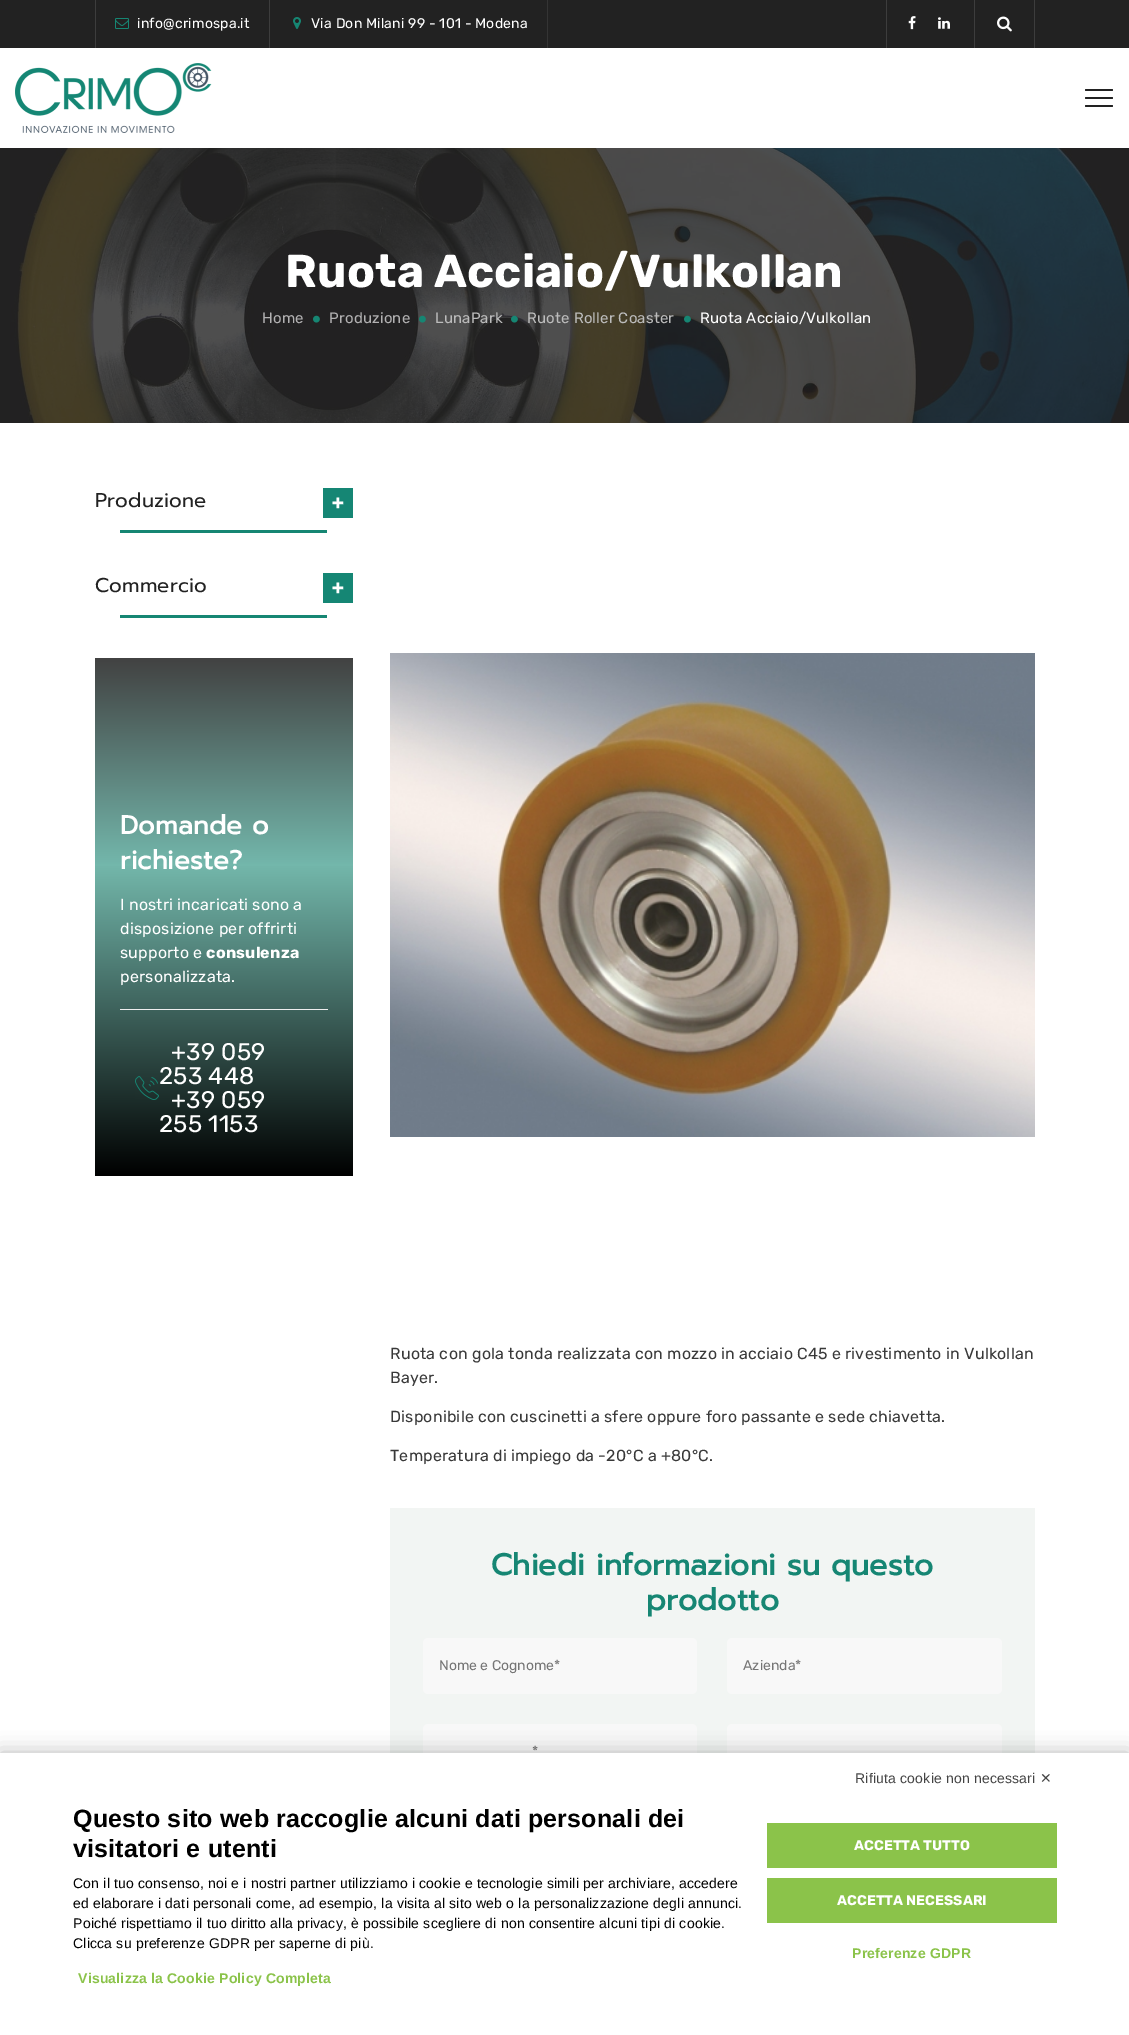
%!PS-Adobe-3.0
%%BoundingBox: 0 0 1129 2035
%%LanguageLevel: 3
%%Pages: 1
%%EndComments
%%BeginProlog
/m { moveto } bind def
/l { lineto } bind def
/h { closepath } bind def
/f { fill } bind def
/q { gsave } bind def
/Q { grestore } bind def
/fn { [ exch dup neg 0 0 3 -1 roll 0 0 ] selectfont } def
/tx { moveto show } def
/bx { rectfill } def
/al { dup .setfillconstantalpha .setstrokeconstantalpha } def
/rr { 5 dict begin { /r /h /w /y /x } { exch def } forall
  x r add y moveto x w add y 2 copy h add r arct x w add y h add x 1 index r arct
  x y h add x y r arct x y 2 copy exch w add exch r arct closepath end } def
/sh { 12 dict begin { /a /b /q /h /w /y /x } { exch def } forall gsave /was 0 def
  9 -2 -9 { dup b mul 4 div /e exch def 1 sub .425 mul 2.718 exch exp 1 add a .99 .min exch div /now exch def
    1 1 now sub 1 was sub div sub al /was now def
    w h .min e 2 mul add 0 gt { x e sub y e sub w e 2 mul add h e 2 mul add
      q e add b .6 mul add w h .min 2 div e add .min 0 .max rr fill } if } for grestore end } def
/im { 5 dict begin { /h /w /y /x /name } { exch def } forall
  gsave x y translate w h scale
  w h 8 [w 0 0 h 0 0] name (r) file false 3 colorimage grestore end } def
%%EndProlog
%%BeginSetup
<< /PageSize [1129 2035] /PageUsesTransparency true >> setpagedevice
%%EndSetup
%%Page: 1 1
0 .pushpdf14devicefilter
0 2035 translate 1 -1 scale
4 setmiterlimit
1 setgray
0 0 1129 2035 bx
0.133 setgray
0 0 1129 48 bx
0.239 setgray
1034 0 1 48 bx
974 0 1 48 bx
886 0 1 48 bx
0.204 setgray
547 0 1 48 bx
0.239 setgray
269 0 1 48 bx
95 0 1 48 bx
(image0.raw) 115 18 14 11 im
/Rubik-Regular 14 fn
1 setgray
137 28 m 0.2 0 (info@crimospa.it) ashow
(image1.raw) 293 17 8 12 im
311 28 m 0.2 0 (Via Don Milani 99 - 101 - Modena) ashow
(image2.raw) 908 16 8 14 im
(image3.raw) 938 17 12 12 im
(image4.raw) 997 16 15 16 im
(image5.raw) 15 63 197 70 im
0.133 setgray
1085 97 28 2 1 rr f
1085 89 28 2 1 rr f
1085 105 28 2 1 rr f
0 148 10 275 bx
(image6.raw) 10 148 1119 275 im
/Rubik-Bold 46 fn
1 setgray
285 287 m 0.2 0 (Ruota Acciaio/Vulkollan) ashow
/Rubik-Regular 15 fn
0.698 0.694 0.698 setrgbcolor
262 323 m 0.2 0 (Home) ashow
(image7.raw) 313 315 7 8 im
329 323 m 0.2 0 (Produzione) ashow
(image8.raw) 419 315 7 8 im
0.737 setgray
435 323 m 0.2 0 (LunaPark) ashow
(image9.raw) 511 315 7 8 im
527 323 m 0.2 0 (Ruote Roller Coaster) ashow
(image10.raw) 684 315 7 8 im
1 setgray
700 323 m 0.2 0 (Ruota Acciaio/Vulkollan) ashow
/Prompt-Regular 20 fn
0.133 setgray
95 507 m 0.2 0 (Produzione) ashow
0.082 0.525 0.455 setrgbcolor
323 488 30 30 bx
/Prompt-Regular 34 fn
1 setgray
331 513 m 0.2 0 (+) ashow
0.086 0.525 0.451 setrgbcolor
120 530 207 3 bx
/Prompt-Regular 20 fn
0.133 setgray
95 592 m 0.2 0 (Commercio) ashow
0.082 0.525 0.455 setrgbcolor
323 573 30 30 bx
/Prompt-Regular 34 fn
1 setgray
331 598 m 0.2 0 (+) ashow
0.086 0.525 0.451 setrgbcolor
120 615 207 3 bx
q 95 658 m 353 658 l 353 1176 l 95 1176 l h clip newpath
<< /ShadingType 2 /ColorSpace /DeviceRGB /Coords [224 1176 224 658] /Extend [true true] /Function << /FunctionType 3 /Domain [0 1] /Functions [<< /FunctionType 2 /Domain [0 1] /C0 [0 0 0] /C1 [0.451 0.718 0.671] /N 1 >> << /FunctionType 2 /Domain [0 1] /C0 [0.451 0.718 0.671] /C1 [0.259 0.259 0.259] /N 1 >>] /Bounds [0.6] /Encode [0 1 0 1] >> >> shfill Q
/Prompt-Bold 26 fn
1 setgray
120 834 m 0.2 0 (Domande o) ashow
120 869 m 0.2 0 (richieste?) ashow
/Rubik-Regular 16 fn
120 910 m 0.2 0 (I nostri incaricati sono a) ashow
120 934 m 0.2 0 (disposizione per offrirti) ashow
120 958 m 0.2 0 (supporto e) ashow
/Rubik-Bold 16 fn
206 958 m 0.2 0 (consulenza) ashow
/Rubik-Regular 16 fn
120 982 m 0.2 0 (personalizzata.) ashow
0.933 setgray
120 1009 208 1 bx
/Rubik-Regular 24 fn
1 setgray
171 1060 m 0.2 0 (+39 059) ashow
159 1084 m 0.2 0 (253 448) ashow
(image11.raw) 135 1076 24 24 im
171 1108 m 0.2 0 (+39 059) ashow
159 1132 m 0.2 0 (255 1153) ashow
(image12.raw) 390 653 645 484 im
/Rubik-Regular 16 fn
0.224 setgray
390 1359 m 0.2 0 (Ruota con gola tonda realizzata con mozzo in acciaio C45 e rivestimento in Vulkollan) ashow
390 1383 m 0.2 0 (Bayer.) ashow
390 1422 m 0.2 0 (Disponibile con cuscinetti a sfere oppure foro passante e sede chiavetta.) ashow
390 1461 m 0.2 0 (Temperatura di impiego da -20°C a +80°C.) ashow
0.949 0.961 0.953 setrgbcolor
390 1508 645 245 bx
/Prompt-Bold 30 fn
0.086 0.525 0.451 setrgbcolor
491 1575 m 0.2 0 (Chiedi informazioni su questo) ashow
646 1610 m 0.2 0 (prodotto) ashow
0.973 setgray
423 1638 274 56 5 rr f
/Rubik-Regular 14 fn
0.459 setgray
(Nome e Cognome*) 439 1670 tx
0.973 setgray
727 1638 275 56 5 rr f
0.459 setgray
(Azienda*) 743 1670 tx
0.973 setgray
423 1724 274 56 5 rr f
0.459 setgray
(*) 532 1756 tx
0.973 setgray
727 1724 275 56 5 rr f
0 setgray
0 1753 1129 282 0 10 0.27 sh
1 setgray
0 1753 1129 282 bx
/LiberationSans-Regular 14 fn
0.267 setgray
855 1783 m 0.2 0 (Rifiuta cookie non necessari) ashow
/DejaVuSans-Regular 14 fn
1040 1783 m 0.2 0 (✕) ashow
/LiberationSans-Bold 25 fn
0 setgray
73 1827 m 0.2 0 (Questo sito web raccoglie alcuni dati personali dei) ashow
73 1857 m 0.2 0 (visitatori e utenti) ashow
/LiberationSans-Regular 14 fn
73 1888 m 0.2 0 (Con il tuo consenso, noi e i nostri partner utilizziamo i cookie e tecnologie simili per archiviare, accedere) ashow
73 1908 m 0.2 0 (ed elaborare i dati personali come, ad esempio, la visita al sito web o la personalizzazione degli annunci.) ashow
73 1928 m 0.2 0 (Poiché rispettiamo il tuo diritto alla privacy, è possibile scegliere di non consentire alcuni tipi di cookie.) ashow
73 1948 m 0.2 0 (Clicca su preferenze GDPR per saperne di più.) ashow
/LiberationSans-Bold 14 fn
0.545 0.765 0.29 setrgbcolor
78 1983 m 0.2 0 (Visualizza la Cookie Policy Completa) ashow
767 1823 290 45 bx
/Rubik-Bold 14 fn
1 setgray
(ACCETTA TUTTO) 854 1850 tx
0.545 0.765 0.29 setrgbcolor
767 1878 290 45 bx
1 setgray
(ACCETTA NECESSARI) 837 1905 tx
/LiberationSans-Bold 14 fn
0.545 0.765 0.29 setrgbcolor
852 1958 m 0.2 0 (Preferenze GDPR) ashow
.poppdf14devicefilter showpage
%%EOF
